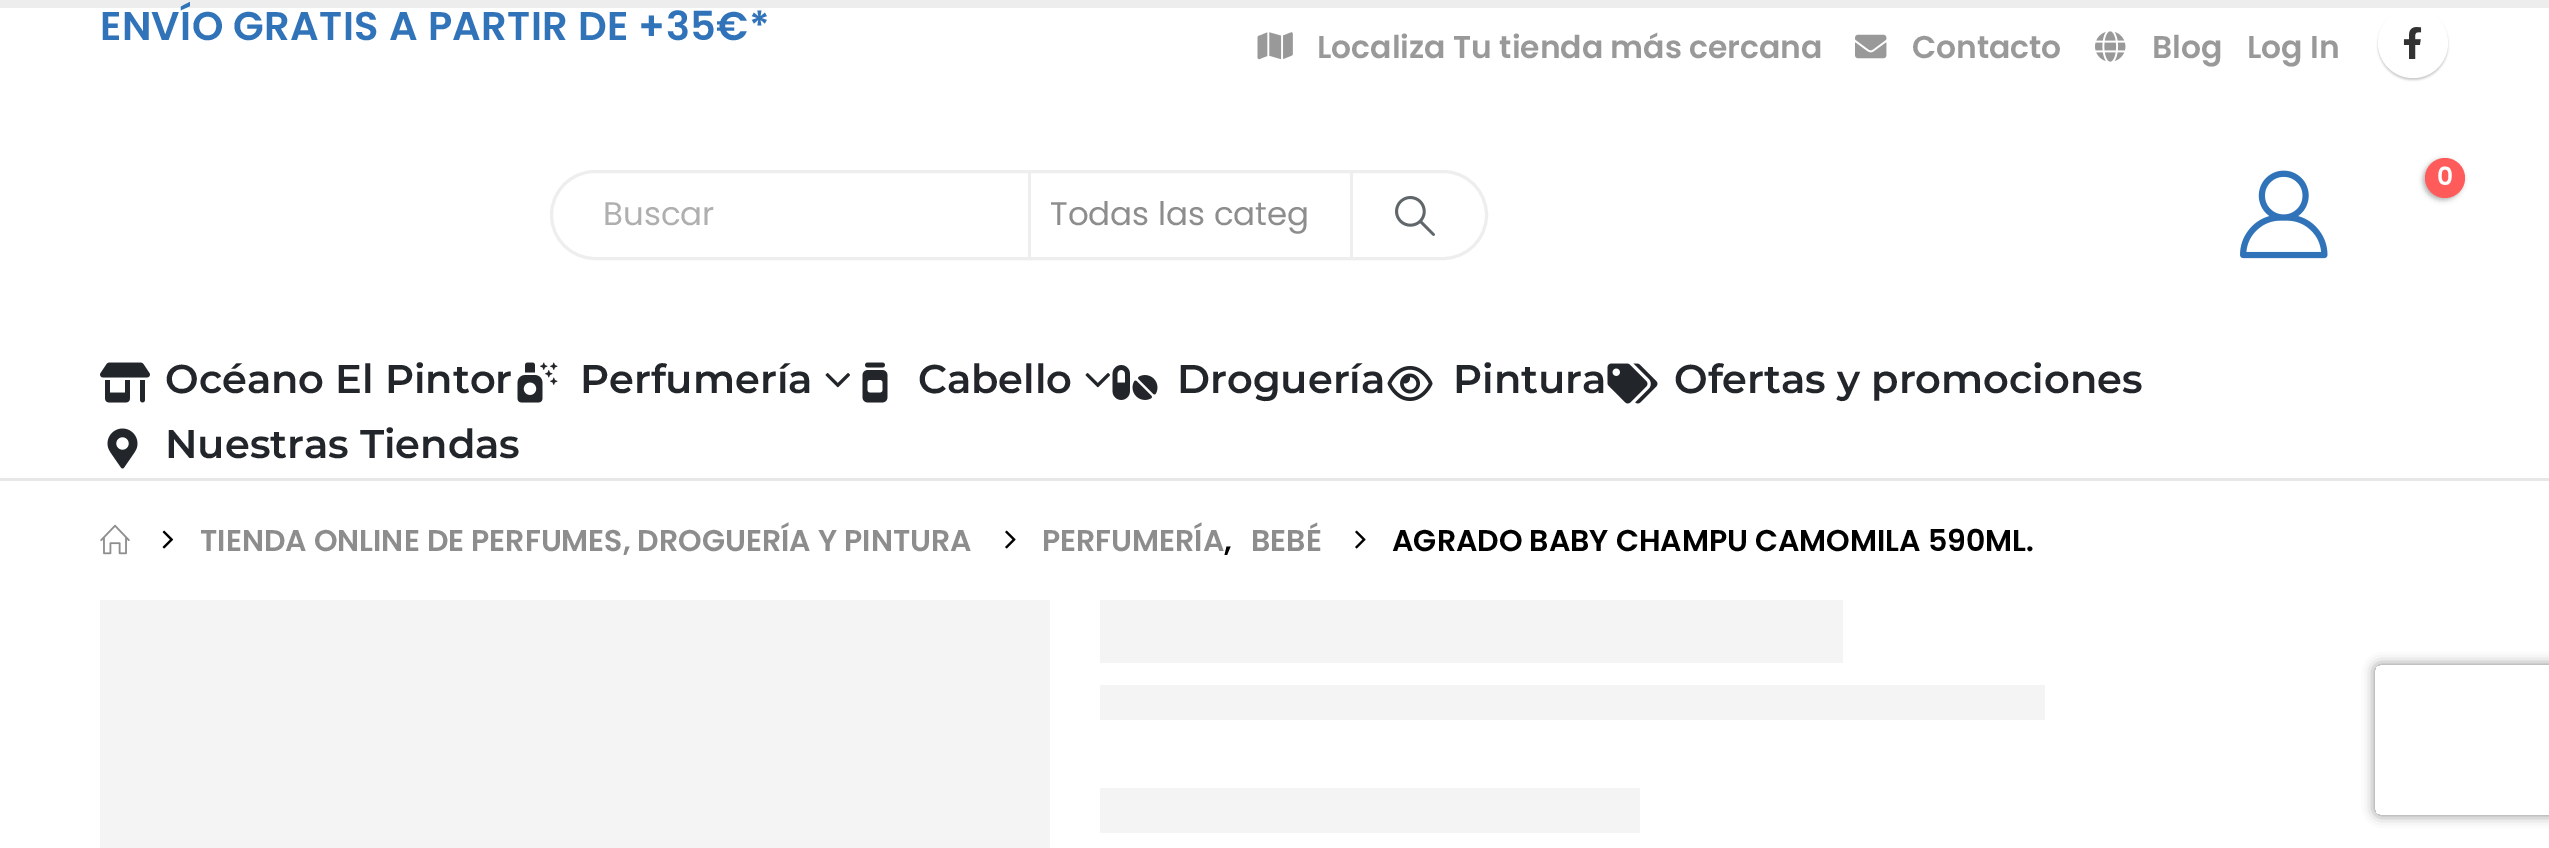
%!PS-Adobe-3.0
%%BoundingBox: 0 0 2549 848
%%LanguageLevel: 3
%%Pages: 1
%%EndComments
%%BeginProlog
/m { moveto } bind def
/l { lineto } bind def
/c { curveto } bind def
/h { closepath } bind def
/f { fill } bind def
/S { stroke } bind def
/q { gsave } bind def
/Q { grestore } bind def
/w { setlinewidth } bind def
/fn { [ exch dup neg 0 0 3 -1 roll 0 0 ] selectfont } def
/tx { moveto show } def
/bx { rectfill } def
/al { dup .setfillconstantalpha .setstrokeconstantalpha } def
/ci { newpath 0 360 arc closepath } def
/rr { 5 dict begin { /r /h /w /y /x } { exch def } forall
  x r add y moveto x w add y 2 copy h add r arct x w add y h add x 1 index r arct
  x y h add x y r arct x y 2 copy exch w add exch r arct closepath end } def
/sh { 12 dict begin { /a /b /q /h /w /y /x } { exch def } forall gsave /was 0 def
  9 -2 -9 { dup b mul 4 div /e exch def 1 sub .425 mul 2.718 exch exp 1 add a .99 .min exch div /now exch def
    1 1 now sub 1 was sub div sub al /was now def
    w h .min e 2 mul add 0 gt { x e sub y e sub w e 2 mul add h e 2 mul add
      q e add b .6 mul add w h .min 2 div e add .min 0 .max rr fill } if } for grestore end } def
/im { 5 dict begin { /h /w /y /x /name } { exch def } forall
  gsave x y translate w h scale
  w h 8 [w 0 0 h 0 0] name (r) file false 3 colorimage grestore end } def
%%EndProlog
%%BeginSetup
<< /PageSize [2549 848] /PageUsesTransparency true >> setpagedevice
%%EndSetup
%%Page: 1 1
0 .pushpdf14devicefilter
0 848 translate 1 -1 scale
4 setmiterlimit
1 setgray
0 0 2549 848 bx
0.929 setgray
0 0 2549 8 bx
0.906 setgray
0 478 2549 3 bx
/Poppins-SemiBold 40 fn
0.188 0.451 0.725 setrgbcolor
100 40 m 0.35 0 (ENVÍO GRATIS A PARTIR DE +35€*) ashow
(image0.raw) 1257 32 36 28 im
/Poppins-SemiBold 31.4 fn
0.6 setgray
(Localiza Tu tienda más cercana) 1317 58 tx
(image1.raw) 1855 34 32 25 im
(Contacto) 1912 58 tx
(image2.raw) 2095 31 31 31 im
(Blog) 2152 58 tx
(Log In) 2247 58 tx
0 setgray
2378 10 70 70 35 1 0.2 sh
1 setgray
2413 43 35 ci f
(image3.raw) 2403 27 19 32 im
0.933 setgray
3 w
551.5 171.5 935 87 43.5 rr S
/Poppins-Regular 32.5 fn
0.686 setgray
(Buscar) 603 225 tx
0.933 setgray
1350 173 3 85 bx
1028 173 3 85 bx
0.553 setgray
(Todas las categ) 1050 225 tx
(image4.raw) 1395 196 40 40 im
(image5.raw) 2240 170 88 89 im
0 setgray
2423 160 40 40 20 2.5 0.3 sh
1 0.357 0.357 setrgbcolor
2445 178 20 ci f
/Poppins-SemiBold 25 fn
1 setgray
(0) 2437 185 tx
(image6.raw) 100 362 50 41 im
/Montserrat-SemiBold 40 fn
0.133 0.145 0.161 setrgbcolor
(Océano El Pintor) 165 393 tx
(image7.raw) 517 362 41 41 im
(Perfumería) 580 393 tx
(image8.raw) 825 373 25 15 im
(image9.raw) 862 362 26 41 im
(Cabello) 918 393 tx
(image8.raw) 1085 373 25 15 im
(image10.raw) 1112 365 46 35 im
(Droguería) 1177 393 tx
(image11.raw) 1387 366 46 35 im
(Pintura) 1453 393 tx
(image12.raw) 1607 363 51 41 im
(Ofertas y promociones) 1674 393 tx
(image13.raw) 107 428 31 41 im
(Nuestras Tiendas) 165 458 tx
(image14.raw) 100 524 30 31 im
(image15.raw) 162 530 12 19 im
/Poppins-SemiBold 30 fn
0.553 setgray
(TIENDA ONLINE DE PERFUMES, DROGUERÍA Y PINTURA) 200 551 tx
(image16.raw) 1005 530 11 19 im
(PERFUMERÍA) 1042 551 tx
(BEBÉ) 1251 551 tx
(image16.raw) 1355 530 11 19 im
0 setgray
(,) 1224 551 tx
(AGRADO BABY CHAMPU CAMOMILA 590ML.) 1392 551 tx
0.957 setgray
100 600 950 248 bx
1100 788 540 45 bx
1100 685 945 35 bx
1100 600 743 63 bx
q
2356 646 m 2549 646 l 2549 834 l 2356 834 l h 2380 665 m 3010 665 l 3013 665 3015 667 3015 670 c 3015 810 l 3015 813 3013 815 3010 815 c 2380 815 l 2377 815 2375 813 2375 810 c 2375 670 l 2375 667 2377 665 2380 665 c h eoclip newpath
0.502 setgray
2375 665 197 150 5 6 1 sh
Q
.poppdf14devicefilter showpage
%%EOF
